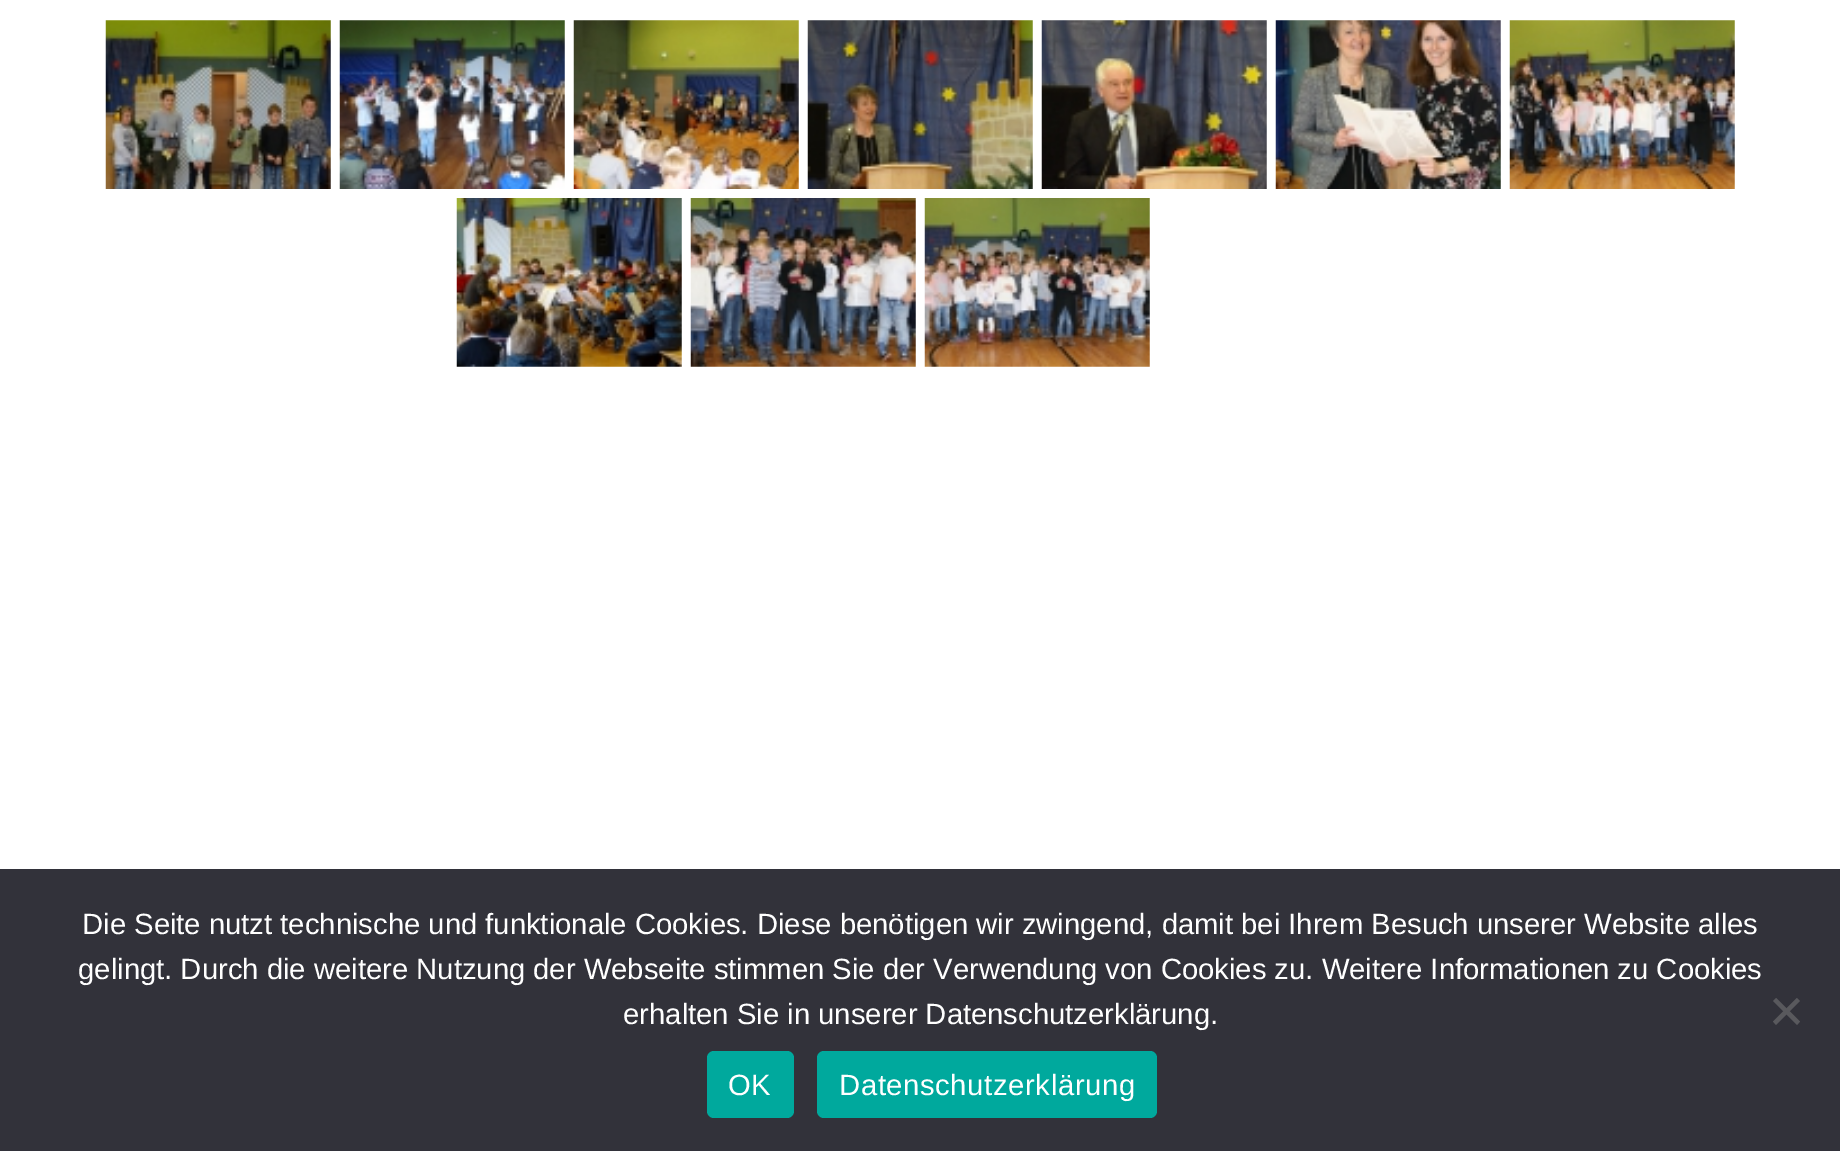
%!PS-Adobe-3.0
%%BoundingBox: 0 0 1840 1151
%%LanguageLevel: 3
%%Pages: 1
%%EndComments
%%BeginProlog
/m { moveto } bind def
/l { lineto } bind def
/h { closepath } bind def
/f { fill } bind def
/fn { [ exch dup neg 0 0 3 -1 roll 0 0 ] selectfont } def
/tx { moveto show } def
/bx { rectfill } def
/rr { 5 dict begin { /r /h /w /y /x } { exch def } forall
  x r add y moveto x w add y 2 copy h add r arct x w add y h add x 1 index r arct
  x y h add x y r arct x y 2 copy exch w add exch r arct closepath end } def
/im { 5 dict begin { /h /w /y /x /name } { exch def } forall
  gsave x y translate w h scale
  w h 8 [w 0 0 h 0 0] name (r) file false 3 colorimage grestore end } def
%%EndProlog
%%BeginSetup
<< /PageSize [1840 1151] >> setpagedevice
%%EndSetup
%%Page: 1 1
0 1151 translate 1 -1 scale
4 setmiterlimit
1 setgray
0 0 1840 1151 bx
(image0.raw) 105 20 226 169 im
(image1.raw) 339 20 226 169 im
(image2.raw) 573 20 226 169 im
(image3.raw) 807 20 226 169 im
(image4.raw) 1041 20 226 169 im
(image5.raw) 1275 20 226 169 im
(image6.raw) 1509 20 226 169 im
(image7.raw) 456 198 226 169 im
(image8.raw) 690 198 226 169 im
(image9.raw) 924 198 226 169 im
0.196 0.196 0.227 setrgbcolor
0 869 1840 282 bx
/LiberationSans-Regular 29.25 fn
1 setgray
(Die Seite nutzt technische und funktionale Cookies. Diese benötigen wir zwingend, damit bei Ihrem Besuch unserer Website alles) 82 934 tx
(gelingt. Durch die weitere Nutzung der Webseite stimmen Sie der Verwendung von Cookies zu. Weitere Informationen zu Cookies) 78 979 tx
(erhalten Sie in unserer Datenschutzerklärung.) 623 1024 tx
0.349 0.349 0.365 setrgbcolor
1797 998 m 1800 1001 l 1776 1025 l 1773 1021.5 l h f
1773 1001 m 1776 998 l 1800 1021.5 l 1797 1025 l h f
0 0.663 0.616 setrgbcolor
707 1051 87 67 7 rr f
1 setgray
728 1095 m 0.6 0 (OK) ashow
0 0.663 0.616 setrgbcolor
817 1051 340 67 7 rr f
1 setgray
839 1095 m 0.6 0 (Datenschutzerklärung) ashow
showpage
%%EOF
